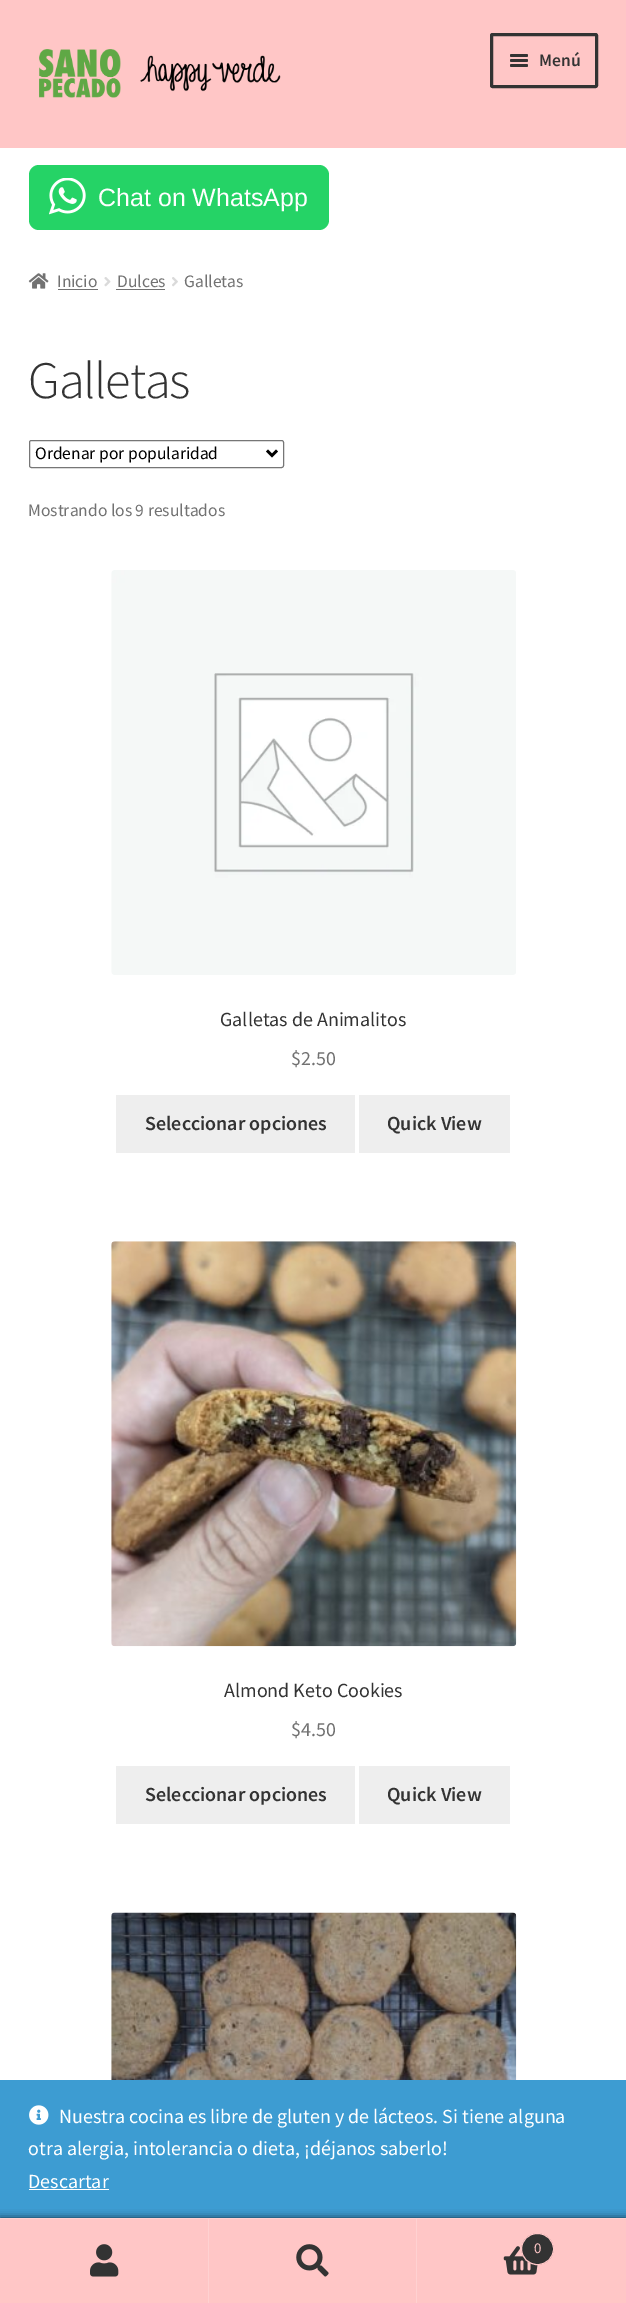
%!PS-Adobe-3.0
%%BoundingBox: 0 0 626 2303
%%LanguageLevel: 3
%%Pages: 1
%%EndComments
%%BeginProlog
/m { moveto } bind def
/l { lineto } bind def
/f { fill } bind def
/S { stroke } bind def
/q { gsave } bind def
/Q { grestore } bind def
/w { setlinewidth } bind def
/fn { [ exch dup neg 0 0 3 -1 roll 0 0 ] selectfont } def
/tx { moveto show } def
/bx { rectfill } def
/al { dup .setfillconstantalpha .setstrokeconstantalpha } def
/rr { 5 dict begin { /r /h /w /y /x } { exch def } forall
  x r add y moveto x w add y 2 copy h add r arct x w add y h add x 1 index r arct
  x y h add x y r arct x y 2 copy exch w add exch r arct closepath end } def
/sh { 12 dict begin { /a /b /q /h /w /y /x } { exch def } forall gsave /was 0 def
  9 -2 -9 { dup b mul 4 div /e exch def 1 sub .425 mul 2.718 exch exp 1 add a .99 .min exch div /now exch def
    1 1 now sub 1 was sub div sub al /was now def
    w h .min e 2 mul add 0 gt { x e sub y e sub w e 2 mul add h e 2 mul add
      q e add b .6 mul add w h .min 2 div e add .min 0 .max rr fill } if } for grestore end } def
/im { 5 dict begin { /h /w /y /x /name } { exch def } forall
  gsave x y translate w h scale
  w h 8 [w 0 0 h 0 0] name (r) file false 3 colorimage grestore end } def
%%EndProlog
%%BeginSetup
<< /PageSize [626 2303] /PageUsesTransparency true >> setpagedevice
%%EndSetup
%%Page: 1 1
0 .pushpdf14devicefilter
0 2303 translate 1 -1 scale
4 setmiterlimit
1 setgray
0 0 626 2303 bx
1 0.776 0.776 setrgbcolor
0 0 626 148 bx
(image0.raw) 39 49 242 49 im
0.2 setgray
3 w
491.5 34.5 105 52 1 rr S
510 54 18 3 1.5 rr f
510 59 18 3 1.5 rr f
/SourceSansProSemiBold-SemiBold 17.5 fn
(Menú) 539 66 tx
510 64 18 3 1.5 rr f
0.145 0.827 0.4 setrgbcolor
29 165 300 65 10 rr f
(image1.raw) 49 178 37 37 im
/LiberationSans-Regular 25 fn
1 setgray
(Chat on WhatsApp) 98 206 tx
(image2.raw) 28 273 21 16 im
/SourceSansPro-Regular 17.5 fn
0.447 setgray
(Inicio) 57 287 tx
58 289 40 1 bx
(image3.raw) 104 277 7 10 im
(Dulces) 117 287 tx
116 289 49 1 bx
(image4.raw) 172 277 6 10 im
(Galletas) 184 287 tx
/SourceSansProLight-Light 52.5 fn
0.2 setgray
28 398 m -1.25 0 (Galletas) ashow
0.463 setgray
1 w
29.5 440.5 254 27 2 rr S
0 setgray
2.5 w
267 450.5 m 272 455.5 l 277 450.5 l S
/SourceSansPro-Regular 17.5 fn
(Ordenar por popularidad) 35 459 tx
0.447 setgray
(Mostrando los 9 resultados) 28 516 tx
(image5.raw) 111 570 405 405 im
/SourceSansPro-Regular 20 fn
0.2 setgray
(Galletas de Animalitos) 220 1026 tx
0.447 setgray
($2.50) 291 1065 tx
0.933 setgray
116 1095 239 58 bx
/SourceSansProSemiBold-SemiBold 20 fn
0.2 setgray
(Seleccionar opciones) 145 1130 tx
0.933 setgray
359 1095 151 58 bx
0.2 setgray
(Quick View) 387 1130 tx
(image6.raw) 111 1241 406 406 im
/SourceSansPro-Regular 20 fn
(Almond Keto Cookies) 224 1697 tx
0.447 setgray
($4.50) 291 1736 tx
0.933 setgray
116 1766 239 58 bx
/SourceSansProSemiBold-SemiBold 20 fn
0.2 setgray
(Seleccionar opciones) 145 1801 tx
0.933 setgray
359 1766 151 58 bx
0.2 setgray
(Quick View) 387 1801 tx
(image7.raw) 111 1912 406 168 im
0.239 0.612 0.824 setrgbcolor
0 2080 626 138 bx
0 setgray
0 2218 626 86 0 4 0.7 sh
1 0.82 0.82 setrgbcolor
0 2218 626 1 bx
1 0.776 0.776 setrgbcolor
0 2219 208 84 bx
1 0.82 0.82 setrgbcolor
208 2219 1 84 bx
(image8.raw) 90 2244 29 33 im
1 0.776 0.776 setrgbcolor
209 2219 417 84 bx
1 0.82 0.82 setrgbcolor
416 2219 1 84 bx
(image9.raw) 296 2244 33 33 im
(image10.raw) 503 2246 35 29 im
0.2 setgray
521.5 2233.5 32 31 15.5 rr q f Q
1 0.776 0.776 setrgbcolor
1 w
S
/SourceSansPro-Regular 15 fn
(0) 534 2253 tx
(image11.raw) 29 2105 20 20 im
/SourceSansPro-Regular 20 fn
1 setgray
(Nuestra cocina es libre de gluten y de lácteos. Si tiene alguna) 59 2123 tx
(otra alergia, intolerancia o dieta, ¡déjanos saberlo!) 28 2155 tx
(Descartar) 28 2188 tx
29 2189 80 1 bx
.poppdf14devicefilter showpage
%%EOF
